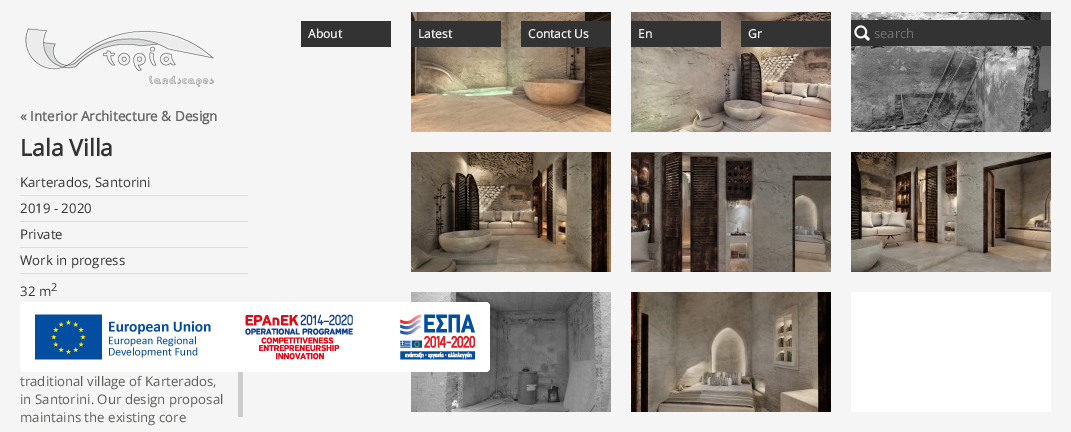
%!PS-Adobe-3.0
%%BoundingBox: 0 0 1071 432
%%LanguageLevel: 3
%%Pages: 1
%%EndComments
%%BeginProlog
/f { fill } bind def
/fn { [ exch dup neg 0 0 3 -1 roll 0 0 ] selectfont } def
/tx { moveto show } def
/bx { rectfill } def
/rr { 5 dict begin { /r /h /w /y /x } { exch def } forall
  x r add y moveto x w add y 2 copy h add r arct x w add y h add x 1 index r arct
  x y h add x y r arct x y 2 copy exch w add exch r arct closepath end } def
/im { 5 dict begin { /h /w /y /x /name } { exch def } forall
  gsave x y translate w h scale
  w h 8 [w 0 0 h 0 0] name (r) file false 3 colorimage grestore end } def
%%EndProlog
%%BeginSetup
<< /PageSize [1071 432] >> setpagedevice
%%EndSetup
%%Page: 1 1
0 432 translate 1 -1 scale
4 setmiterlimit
0.961 setgray
0 0 1071 432 bx
(image0.raw) 25 28 189 59 im
(image1.raw) 411 12 200 120 im
(image2.raw) 631 12 200 120 im
(image3.raw) 851 12 200 120 im
(image4.raw) 411 152 200 120 im
(image5.raw) 631 152 200 120 im
(image6.raw) 851 152 200 120 im
(image7.raw) 411 292 200 120 im
(image8.raw) 631 292 200 120 im
1 setgray
851 292 200 120 bx
0.2 setgray
301 21 90 26 bx
/OpenSans-Bold 12 fn
0.933 setgray
(About) 308 38 tx
0.2 setgray
411 21 90 26 bx
0.933 setgray
(Latest) 418 38 tx
0.2 setgray
521 21 90 26 bx
0.933 setgray
(Contact Us) 528 38 tx
0.2 setgray
631 21 90 26 bx
0.933 setgray
(En) 638 38 tx
0.2 setgray
741 21 90 26 bx
0.933 setgray
(Gr) 748 38 tx
0.2 setgray
851 20 200 26 bx
(image9.raw) 854 25 16 16 im
/OpenSans-Regular 13 fn
0.459 setgray
(search) 874 38 tx
/OpenSans-Bold 13.5 fn
0.4 setgray
(« Interior Architecture & Design) 20 121 tx
/OpenSans-Bold 23 fn
0.2 setgray
(Lala Villa) 20 156 tx
0.867 setgray
20 195 228 1 bx
/OpenSans-Regular 13.25 fn
0.2 setgray
(Karterados, Santorini) 20 187 tx
0.867 setgray
20 221 228 1 bx
0.2 setgray
(2019 - 2020) 20 213 tx
0.867 setgray
20 247 228 1 bx
0.2 setgray
(Private) 20 239 tx
0.867 setgray
20 273 228 1 bx
0.2 setgray
(Work in progress) 20 265 tx
0.867 setgray
20 304 1 1 bx
0.2 setgray
(32 m) 20 296 tx
/OpenSans-Regular 11 fn
(2) 51 291 tx
/OpenSans-Regular 13.25 fn
0.369 0.361 0.353 setrgbcolor
(traditional village of Karterados,) 20 386 tx
(in Santorini. Our design proposal) 20 404 tx
(maintains the existing core) 20 422 tx
0.8 setgray
238 372 5 45 bx
1 setgray
20 302 470 70 4 rr f
(image10.raw) 35 314 440 46 im
showpage
%%EOF
